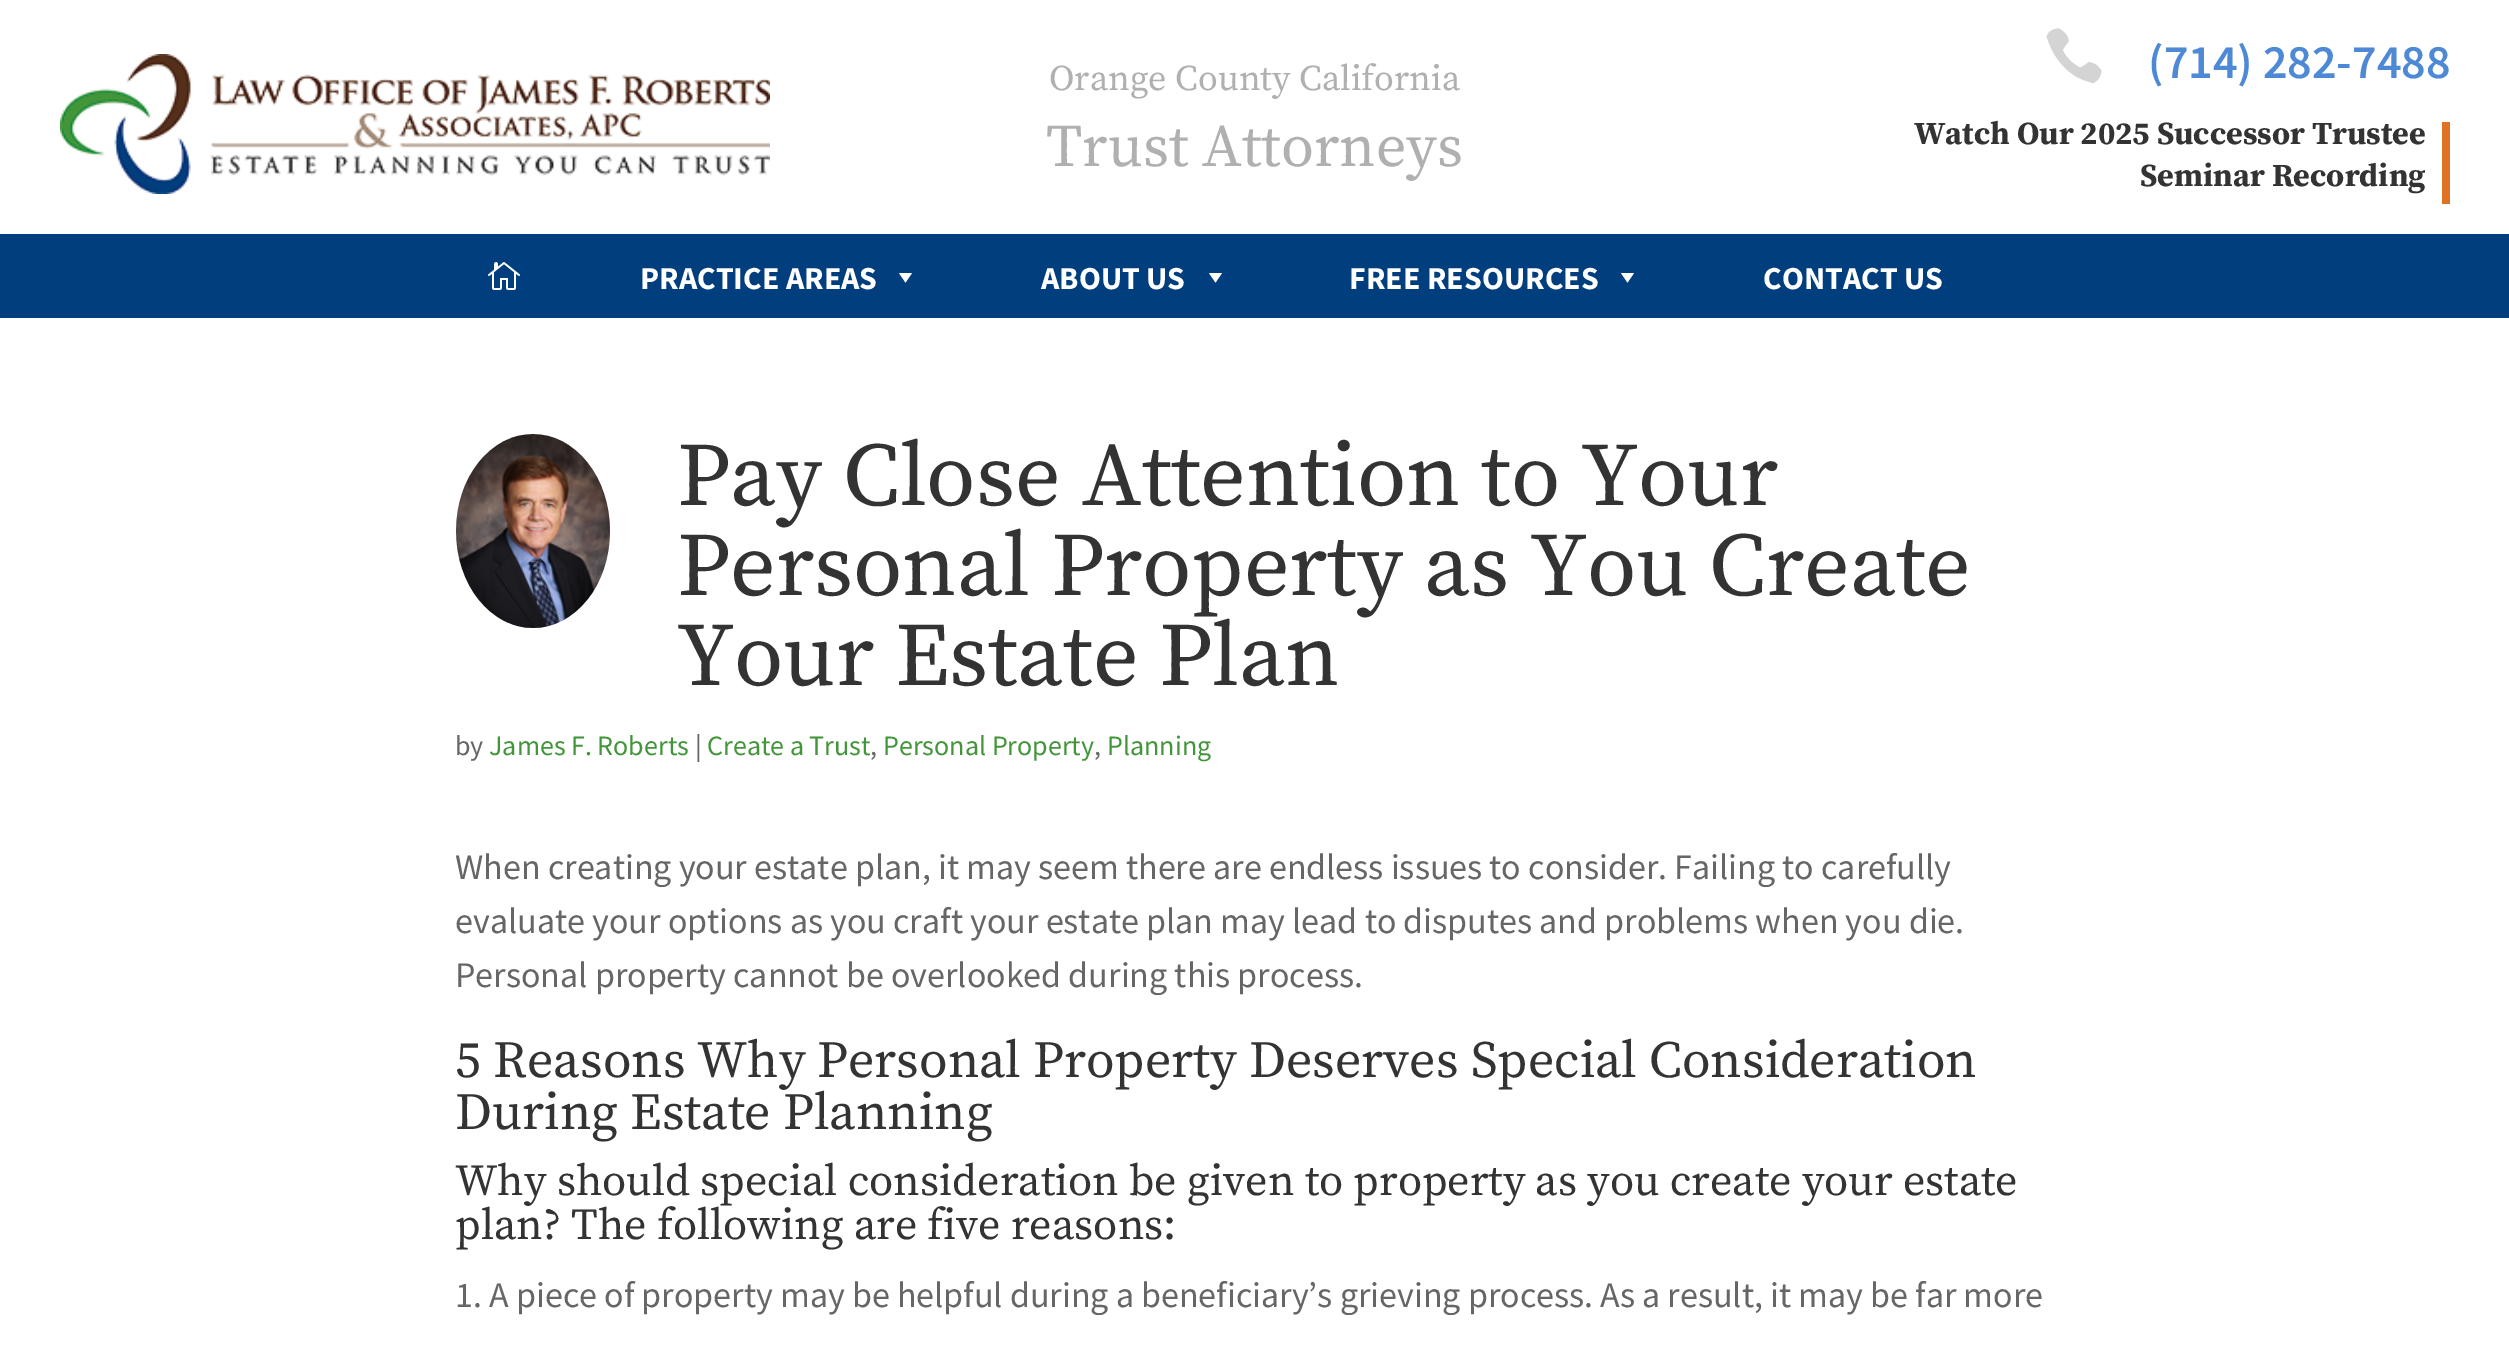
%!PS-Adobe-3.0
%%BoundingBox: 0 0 2509 1352
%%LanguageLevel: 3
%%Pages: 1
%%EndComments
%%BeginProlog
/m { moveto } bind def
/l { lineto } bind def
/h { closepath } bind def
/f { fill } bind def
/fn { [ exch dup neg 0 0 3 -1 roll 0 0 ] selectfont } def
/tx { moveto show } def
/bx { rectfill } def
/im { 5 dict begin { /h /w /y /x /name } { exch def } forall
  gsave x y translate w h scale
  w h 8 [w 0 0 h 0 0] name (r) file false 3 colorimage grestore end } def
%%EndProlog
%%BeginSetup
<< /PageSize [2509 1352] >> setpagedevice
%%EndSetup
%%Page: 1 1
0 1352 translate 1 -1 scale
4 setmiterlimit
1 setgray
0 0 2509 1352 bx
(image0.raw) 60 54 710 140 im
/SourceSerifPro-Regular 36 fn
0.69 setgray
(Orange County California) 1049 90 tx
/SourceSerifPro-Regular 60 fn
(Trust Attorneys) 1046 166 tx
(image1.raw) 2046 28 56 56 im
/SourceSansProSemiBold-SemiBold 48 fn
0.302 0.537 0.835 setrgbcolor
(\(714\) 282-7488) 2148 78 tx
0.878 0.447 0.137 setrgbcolor
2442 122 8 82 bx
/SourceSerifPro-Bold 32 fn
0.2 setgray
(Watch Our 2025 Successor Trustee) 1914 144 tx
(Seminar Recording) 2140 186 tx
0 0.243 0.494 setrgbcolor
0 234 2509 84 bx
(image2.raw) 488 262 32 28 im
/SourceSansPro-Bold 32 fn
1 setgray
(PRACTICE AREAS) 640 289 tx
912 273 m 905.5 282.5 l 899 273 l h f
(ABOUT US) 1041 289 tx
1222 273 m 1215.5 282.5 l 1209 273 l h f
(FREE RESOURCES) 1349 289 tx
1634 273 m 1627.5 282.5 l 1621 273 l h f
(CONTACT US) 1763 289 tx
(image3.raw) 456 434 154 194 im
/SourceSerifPro-Regular 90 fn
0.2 setgray
(Pay Close Attention to Your) 677 505 tx
(Personal Property as You Create) 677 595 tx
(Your Estate Plan) 677 685 tx
/SourceSansPro-Regular 28 fn
0.4 setgray
(by) 455 755 tx
0.259 0.584 0.224 setrgbcolor
(James F. Roberts) 489 755 tx
0.4 setgray
(|) 695 755 tx
0.259 0.584 0.224 setrgbcolor
(Create a Trust) 707 755 tx
0.4 setgray
(,) 870 755 tx
0.259 0.584 0.224 setrgbcolor
(Personal Property) 883 755 tx
0.4 setgray
(,) 1094 755 tx
0.259 0.584 0.224 setrgbcolor
(Planning) 1107 755 tx
/SourceSansPro-Regular 36 fn
0.4 setgray
(When creating your estate plan, it may seem there are endless issues to consider. Failing to carefully) 455 879 tx
(evaluate your options as you craft your estate plan may lead to disputes and problems when you die.) 455 933 tx
(Personal property cannot be overlooked during this process.) 455 987 tx
/SourceSerifPro-Regular 52 fn
0.2 setgray
(5 Reasons Why Personal Property Deserves Special Consideration) 455 1077 tx
(During Estate Planning) 455 1129 tx
/SourceSerifPro-Regular 44 fn
(Why should special consideration be given to property as you create your estate) 455 1195 tx
(plan? The following are five reasons:) 455 1239 tx
/SourceSansPro-Regular 36 fn
0.4 setgray
(1. A piece of property may be helpful during a beneficiary’s grieving process. As a result, it may be far more) 455 1307 tx
showpage
%%EOF
